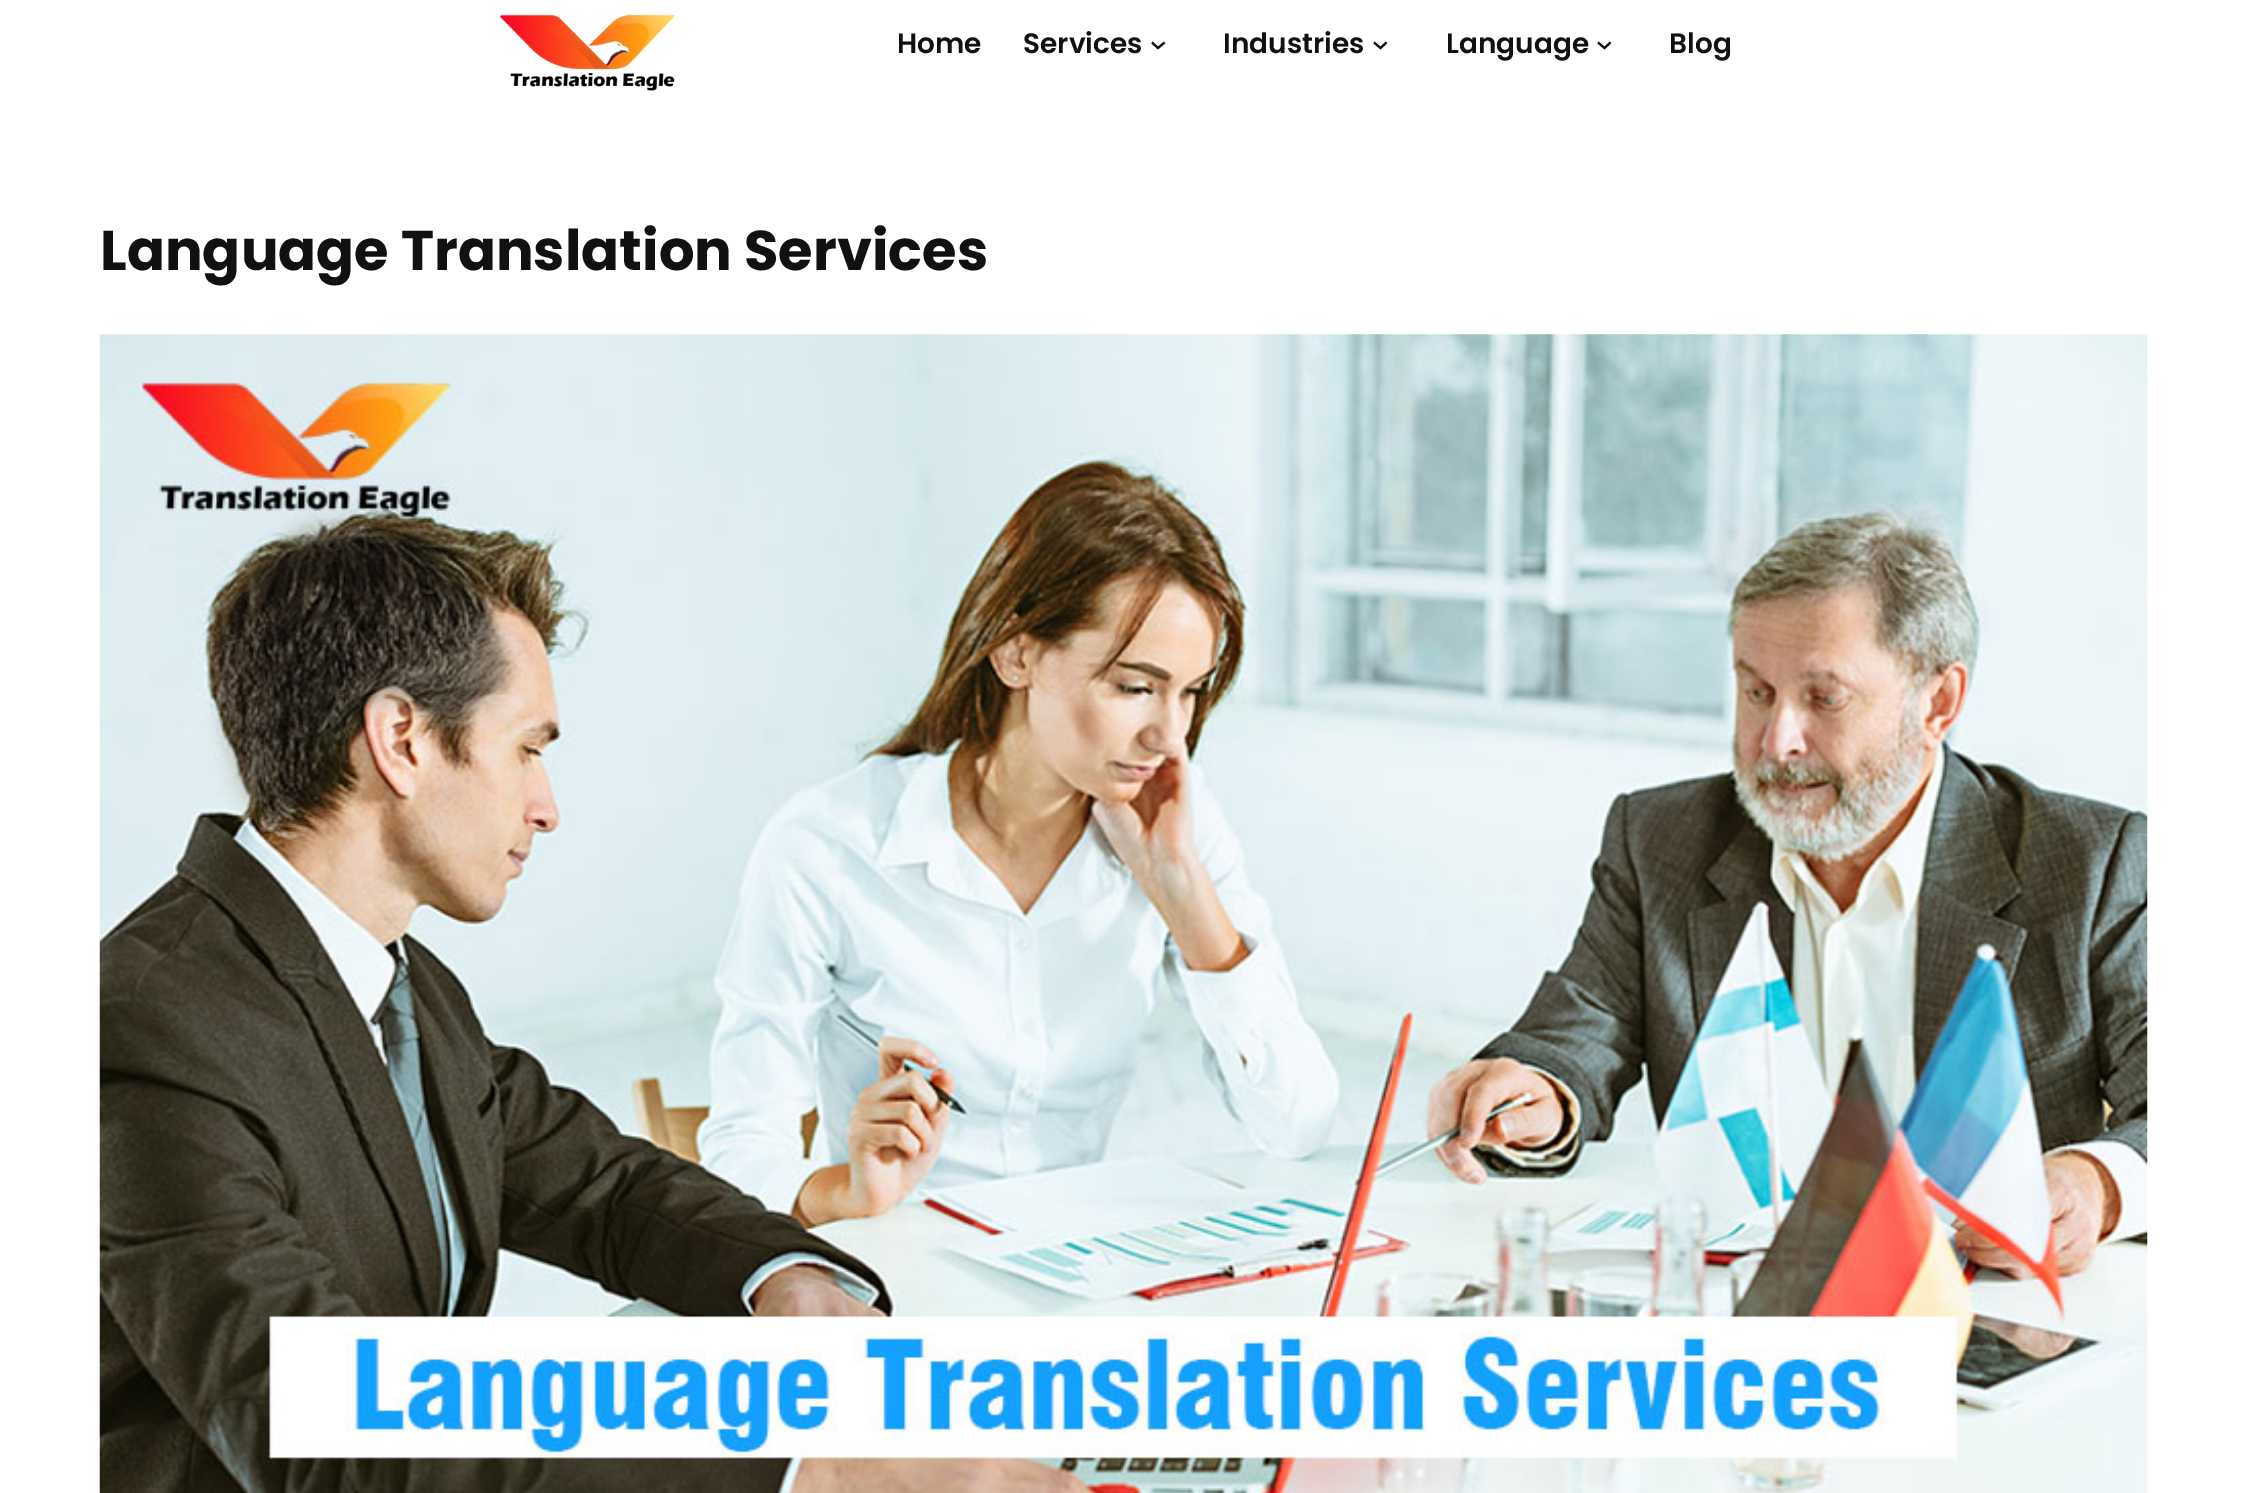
%!PS-Adobe-3.0
%%BoundingBox: 0 0 2246 1493
%%LanguageLevel: 3
%%Pages: 1
%%EndComments
%%BeginProlog
/m { moveto } bind def
/l { lineto } bind def
/S { stroke } bind def
/w { setlinewidth } bind def
/fn { [ exch dup neg 0 0 3 -1 roll 0 0 ] selectfont } def
/tx { moveto show } def
/bx { rectfill } def
/im { 5 dict begin { /h /w /y /x /name } { exch def } forall
  gsave x y translate w h scale
  w h 8 [w 0 0 h 0 0] name (r) file false 3 colorimage grestore end } def
%%EndProlog
%%BeginSetup
<< /PageSize [2246 1493] >> setpagedevice
%%EndSetup
%%Page: 1 1
0 1493 translate 1 -1 scale
4 setmiterlimit
1 setgray
0 0 2246 1493 bx
(image0.raw) 500 14 175 77 im
/Poppins-SemiBold 28 fn
0.067 setgray
(Home) 897 53 tx
(Services) 1023 53 tx
2.1 w
1152 42.5 m 1158 48 l 1164.5 42.5 l S
(Industries) 1223 53 tx
1374 42.5 m 1380.5 48 l 1386.5 42.5 l S
(Language) 1446 53 tx
1598 42.5 m 1604.5 48 l 1610.5 42.5 l S
(Blog) 1669 53 tx
/Poppins-Bold 56 fn
(Language Translation Services) 100 270 tx
(image1.raw) 99 334 2049 1159 im
showpage
%%EOF
